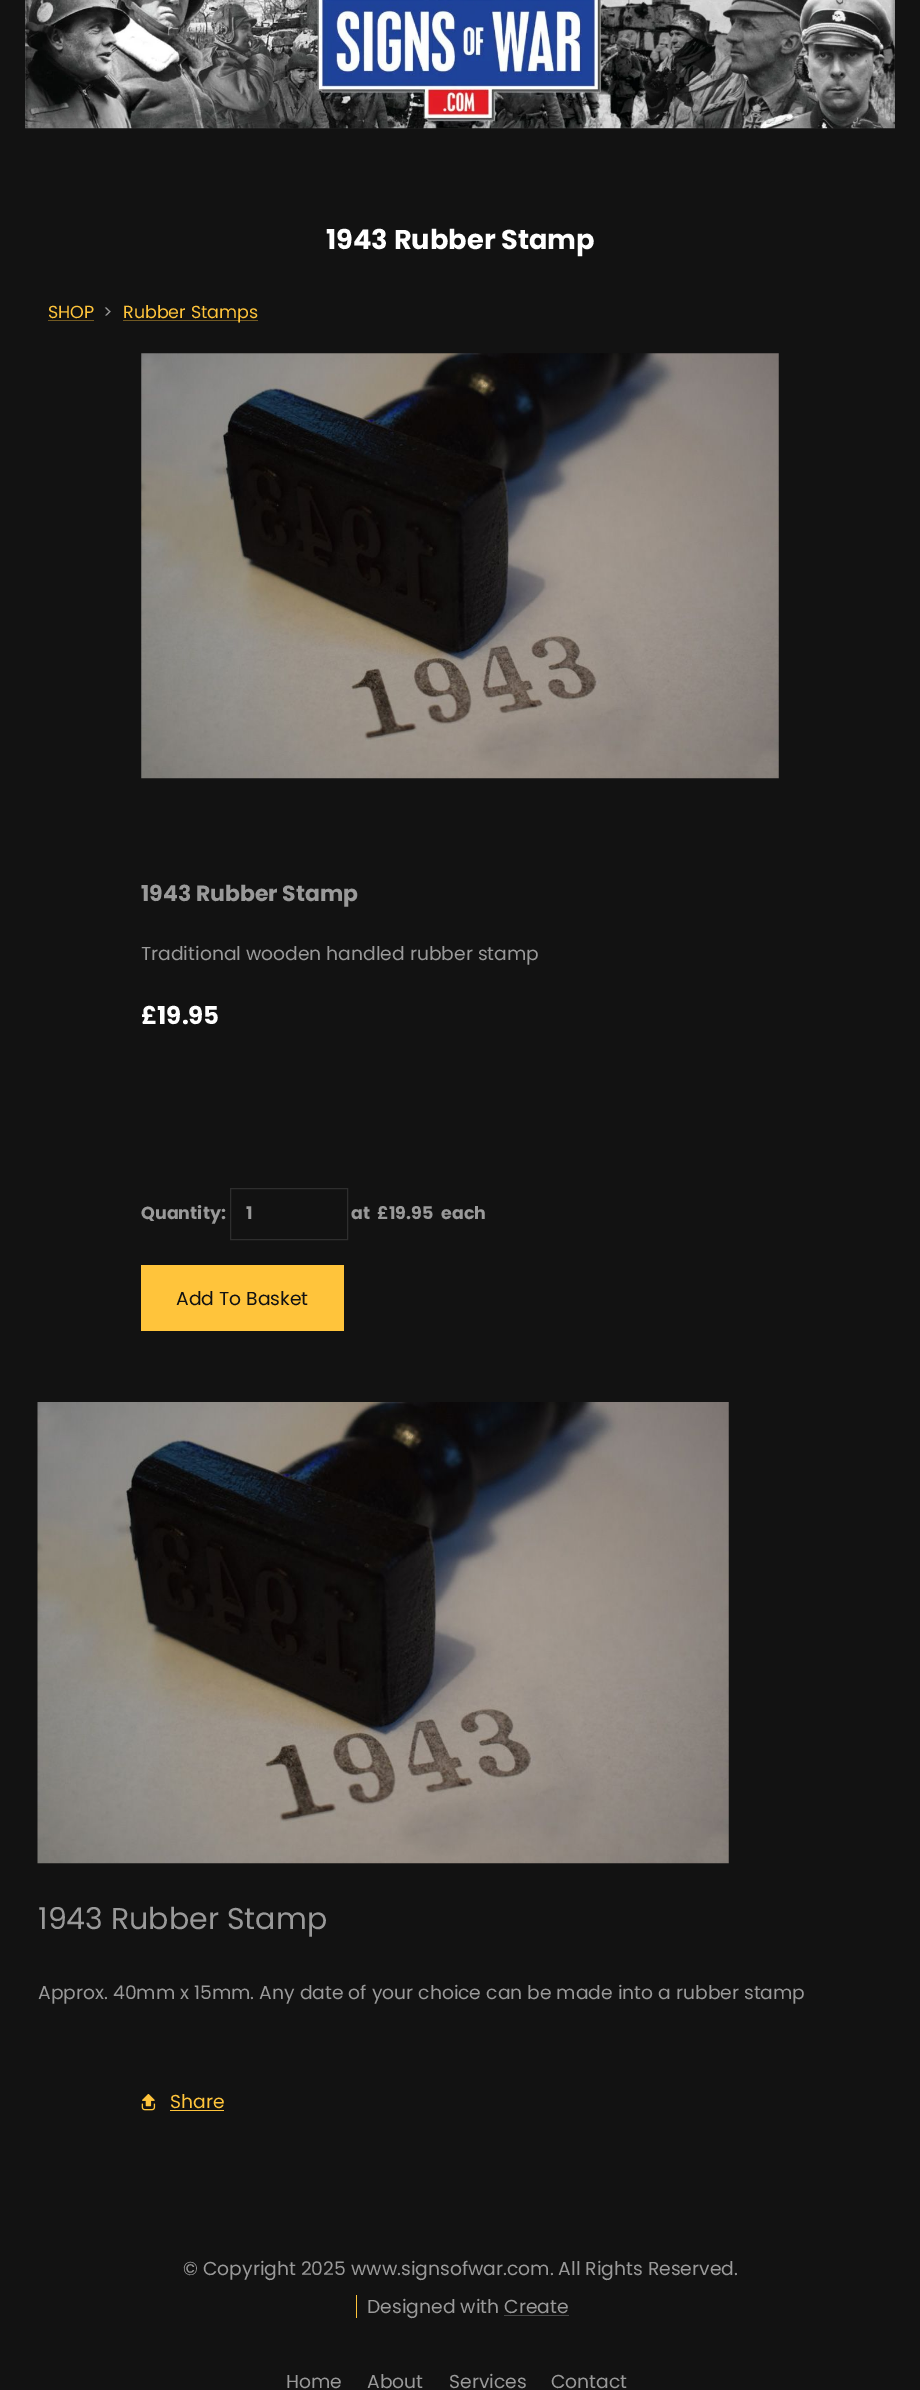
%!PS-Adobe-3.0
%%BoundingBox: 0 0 920 2390
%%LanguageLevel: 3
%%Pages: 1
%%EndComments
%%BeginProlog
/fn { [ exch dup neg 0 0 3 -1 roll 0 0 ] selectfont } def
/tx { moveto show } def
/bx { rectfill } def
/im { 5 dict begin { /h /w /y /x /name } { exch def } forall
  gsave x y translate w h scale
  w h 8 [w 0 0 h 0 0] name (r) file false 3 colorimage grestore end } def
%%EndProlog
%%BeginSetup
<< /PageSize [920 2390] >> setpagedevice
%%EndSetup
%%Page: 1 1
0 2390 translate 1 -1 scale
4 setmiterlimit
0.071 setgray
0 0 920 2390 bx
(image0.raw) 25 0 870 129 im
/Poppins-Bold 27.25 fn
1 setgray
(1943 Rubber Stamp) 326 249 tx
/Poppins-Regular 17.5 fn
1 0.769 0.231 setrgbcolor
(SHOP) 48 318 tx
0.443 0.349 0.133 setrgbcolor
48 320 46 1 bx
0.6 setgray
(>) 103 318 tx
0.443 0.349 0.133 setrgbcolor
123 320 135 1 bx
1 0.769 0.231 setrgbcolor
(Rubber Stamps) 123 318 tx
(image1.raw) 141 353 638 426 im
/Poppins-Bold 22 fn
0.6 setgray
(1943 Rubber Stamp) 141 901 tx
/Poppins-Regular 18.75 fn
(Traditional wooden handled rubber stamp) 141 960 tx
/Poppins-Bold 24.5 fn
1 setgray
(£19.95) 141 1024 tx
/Poppins-Bold 17.5 fn
0.6 setgray
(Quantity:) 141 1219 tx
0.18 setgray
230.5 1188.5 117 51 rectstroke
0.6 setgray
(1) 246 1219 tx
(at) 351 1219 tx
(£19.95) 377 1219 tx
(each) 441 1219 tx
1 0.769 0.231 setrgbcolor
141 1265 203 66 bx
/Poppins-Regular 18.75 fn
0.071 setgray
(Add To Basket) 176 1305 tx
(image2.raw) 37 1402 692 462 im
/Poppins-Regular 30 fn
0.6 setgray
(1943 Rubber Stamp) 38 1929 tx
/Poppins-Regular 18.75 fn
(Approx. 40mm x 15mm. Any date of your choice can be made into a rubber stamp) 38 1999 tx
(image3.raw) 141 2094 15 17 im
1 0.769 0.231 setrgbcolor
(Share) 170 2108 tx
170 2110 54 1 bx
0.6 setgray
(© Copyright 2025 www.signsofwar.com. All Rights Reserved.) 183 2275 tx
1 0.769 0.231 setrgbcolor
356 2295 1 23 bx
0.6 setgray
(Designed with Create) 367 2313 tx
0.282 setgray
504 2315 65 1 bx
0.6 setgray
(Home) 286 2388 tx
(About) 367 2388 tx
(Services) 449 2388 tx
(Contact) 551 2388 tx
showpage
%%EOF
